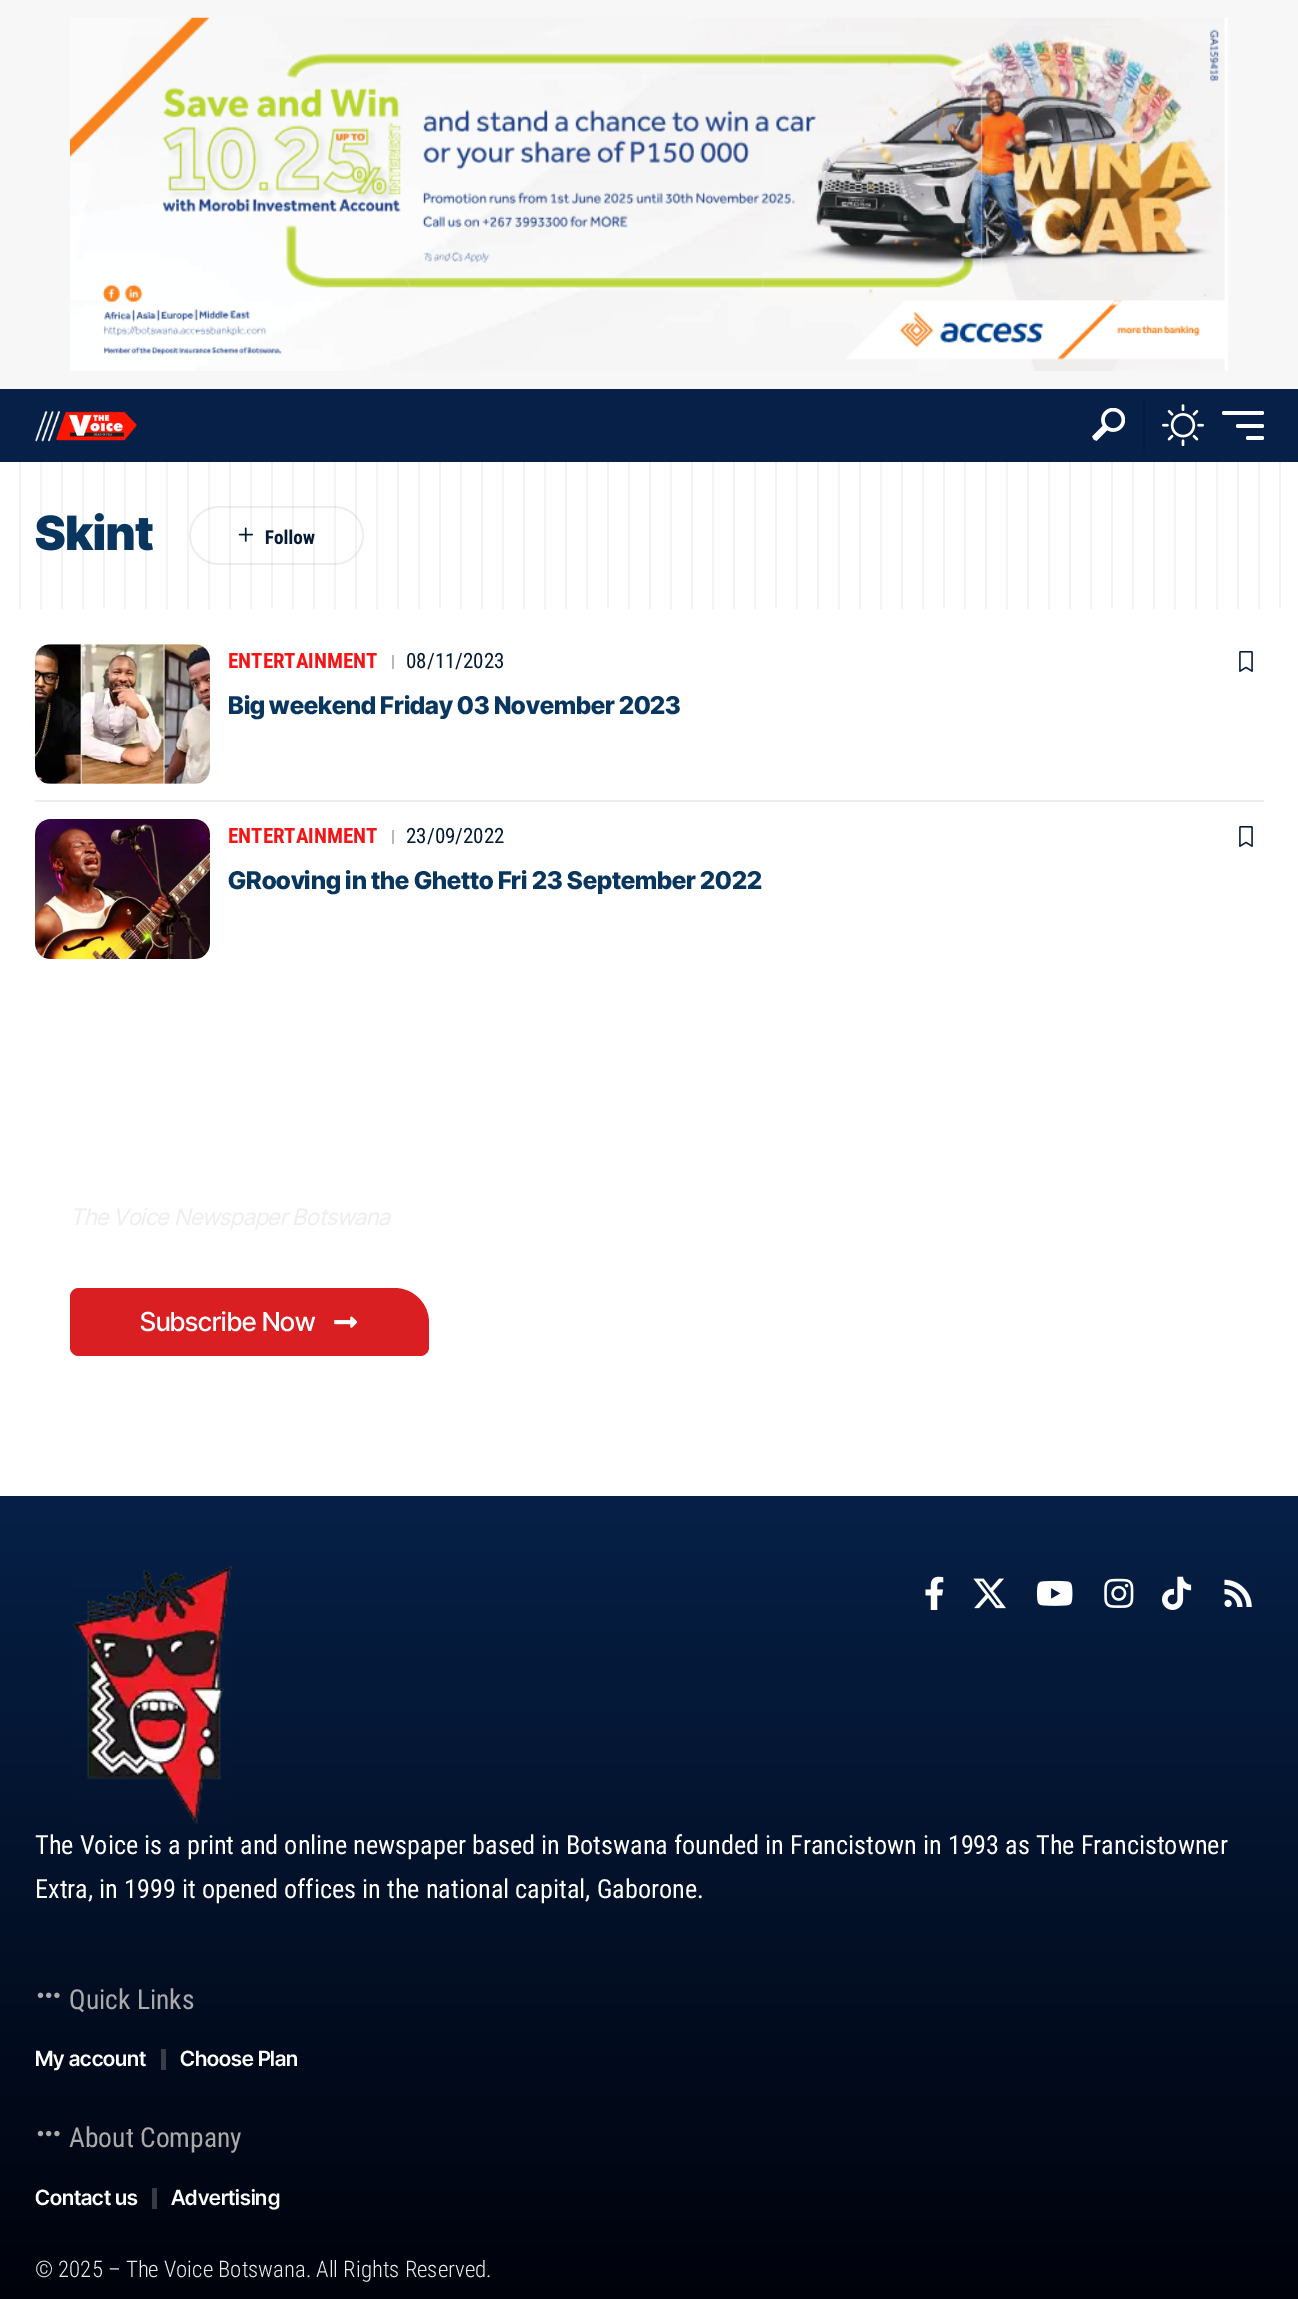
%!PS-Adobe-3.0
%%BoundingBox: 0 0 1298 2299
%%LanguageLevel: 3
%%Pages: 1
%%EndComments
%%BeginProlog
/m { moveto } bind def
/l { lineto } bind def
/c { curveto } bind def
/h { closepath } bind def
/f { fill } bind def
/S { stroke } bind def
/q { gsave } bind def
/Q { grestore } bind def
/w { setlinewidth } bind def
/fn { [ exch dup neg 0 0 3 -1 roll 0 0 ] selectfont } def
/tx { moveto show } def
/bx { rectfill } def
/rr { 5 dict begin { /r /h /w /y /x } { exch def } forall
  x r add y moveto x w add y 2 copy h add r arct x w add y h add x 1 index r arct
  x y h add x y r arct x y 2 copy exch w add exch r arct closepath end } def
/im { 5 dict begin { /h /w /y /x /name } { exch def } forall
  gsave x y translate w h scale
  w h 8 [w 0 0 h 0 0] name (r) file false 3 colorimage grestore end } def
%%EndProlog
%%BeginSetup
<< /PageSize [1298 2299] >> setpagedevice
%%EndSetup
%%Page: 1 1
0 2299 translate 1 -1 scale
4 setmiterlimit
1 setgray
0 0 1298 2299 bx
0.969 setgray
0 0 1298 389 bx
(image0.raw) 70 17 1158 354 im
0.024 0.125 0.278 setrgbcolor
0 389 1298 73 bx
(image1.raw) 35 410 102 32 im
(image2.raw) 1092 408 33 33 im
0.024 0.114 0.255 setrgbcolor
1143 397 2 56 bx
(image3.raw) 1162 404 42 42 im
1 setgray
1222 411 42 4 2 rr f
1236 424 28 4 2 rr f
1246 436 18 4 2 rr f
/InterTight-Black 47 fn
0.035 0.212 0.369 setrgbcolor
(Skint) 35 550 tx
0.929 setgray
2 w
190 507 173 57 28.5 rr S
(image5.raw) 238 527 16 15 im
/RobotoCondensed-Bold 19 fn
0.012 0.098 0.204 setrgbcolor
(Follow) 265 544 tx
(image4.raw) 19 462 1262 147 im
(image6.raw) 35 644 175 140 im
/RobotoCondensed-Bold 21 fn
0.961 0.078 0.086 setrgbcolor
(ENTERTAINMENT) 228 668 tx
0.702 0.729 0.761 setrgbcolor
392 655 2 14 bx
/RobotoCondensed-Regular 21 fn
0.012 0.098 0.204 setrgbcolor
(08/11/2023) 406 668 tx
(image7.raw) 1239 651 14 21 im
/InterTight-ExtraBold 24.5 fn
0.035 0.212 0.369 setrgbcolor
(Big weekend Friday 03 November 2023) 228 714 tx
0.929 setgray
35 800 1229 2 bx
(image8.raw) 35 819 175 140 im
/RobotoCondensed-Bold 21 fn
0.961 0.078 0.086 setrgbcolor
(ENTERTAINMENT) 228 843 tx
0.702 0.729 0.761 setrgbcolor
392 830 2 14 bx
/RobotoCondensed-Regular 21 fn
0.012 0.098 0.204 setrgbcolor
(23/09/2022) 406 843 tx
(image7.raw) 1239 826 14 21 im
/InterTight-ExtraBold 24.5 fn
0.035 0.212 0.369 setrgbcolor
(GRooving in the Ghetto Fri 23 September 2022) 228 889 tx
/InterTight-Italic 22.75 fn
0.933 setgray
(The Voice Newspaper Botswana) 70 1225 tx
0.851 0.122 0.129 setrgbcolor
79 1288 m 394 1288 l 413.5 1288 429 1303.5 429 1323 c 429 1347 l 429 1352 425 1356 420 1356 c 79 1356 l 74 1356 70 1352 70 1347 c 70 1297 l 70 1292 74 1288 79 1288 c h f
/InterTight-Medium 26.25 fn
1 setgray
(Subscribe Now) 140 1331 tx
(image9.raw) 334 1316 24 12 im
q 0 1496 m 1298 1496 l 1298 2299 l 0 2299 l h clip newpath
<< /ShadingType 2 /ColorSpace /DeviceRGB /Coords [649 1496 649 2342] /Extend [true true] /Function << /FunctionType 2 /Domain [0 1] /C0 [0.024 0.125 0.278] /C1 [0 0 0.031] /N 1 >> >> shfill Q
(image10.raw) 72 1566 160 258 im
(image11.raw) 925 1576 19 34 im
(image12.raw) 973 1578 33 31 im
(image13.raw) 1036 1580 37 26 im
(image14.raw) 1104 1578 30 30 im
(image15.raw) 1162 1576 30 34 im
(image16.raw) 1224 1579 28 28 im
/RobotoCondensed-Regular 26.25 fn
(The Voice is a print and online newspaper based in Botswana founded in Francistown in 1993 as The Francistowner) 35 1854 tx
(Extra, in 1999 it opened offices in the national capital, Gaborone.) 35 1898 tx
(image17.raw) 37 1992 23 6 im
/RobotoCondensed-Regular 27.5 fn
0.667 setgray
(Quick Links) 69 2009 tx
/InterTight-SemiBold 21 fn
1 setgray
(My account) 35 2066 tx
0.22 0.239 0.282 setrgbcolor
161 2049 5 21 bx
1 setgray
(Choose Plan) 180 2066 tx
(image18.raw) 37 2130 23 7 im
/RobotoCondensed-Regular 27.5 fn
0.667 setgray
(About Company) 69 2147 tx
/InterTight-SemiBold 21 fn
1 setgray
(Contact us) 35 2205 tx
0.216 0.227 0.259 setrgbcolor
152 2188 5 21 bx
1 setgray
(Advertising) 171 2205 tx
/RobotoCondensed-Light 22.75 fn
0.933 setgray
(© 2025 – The Voice Botswana. All Rights Reserved.) 35 2277 tx
showpage
%%EOF
